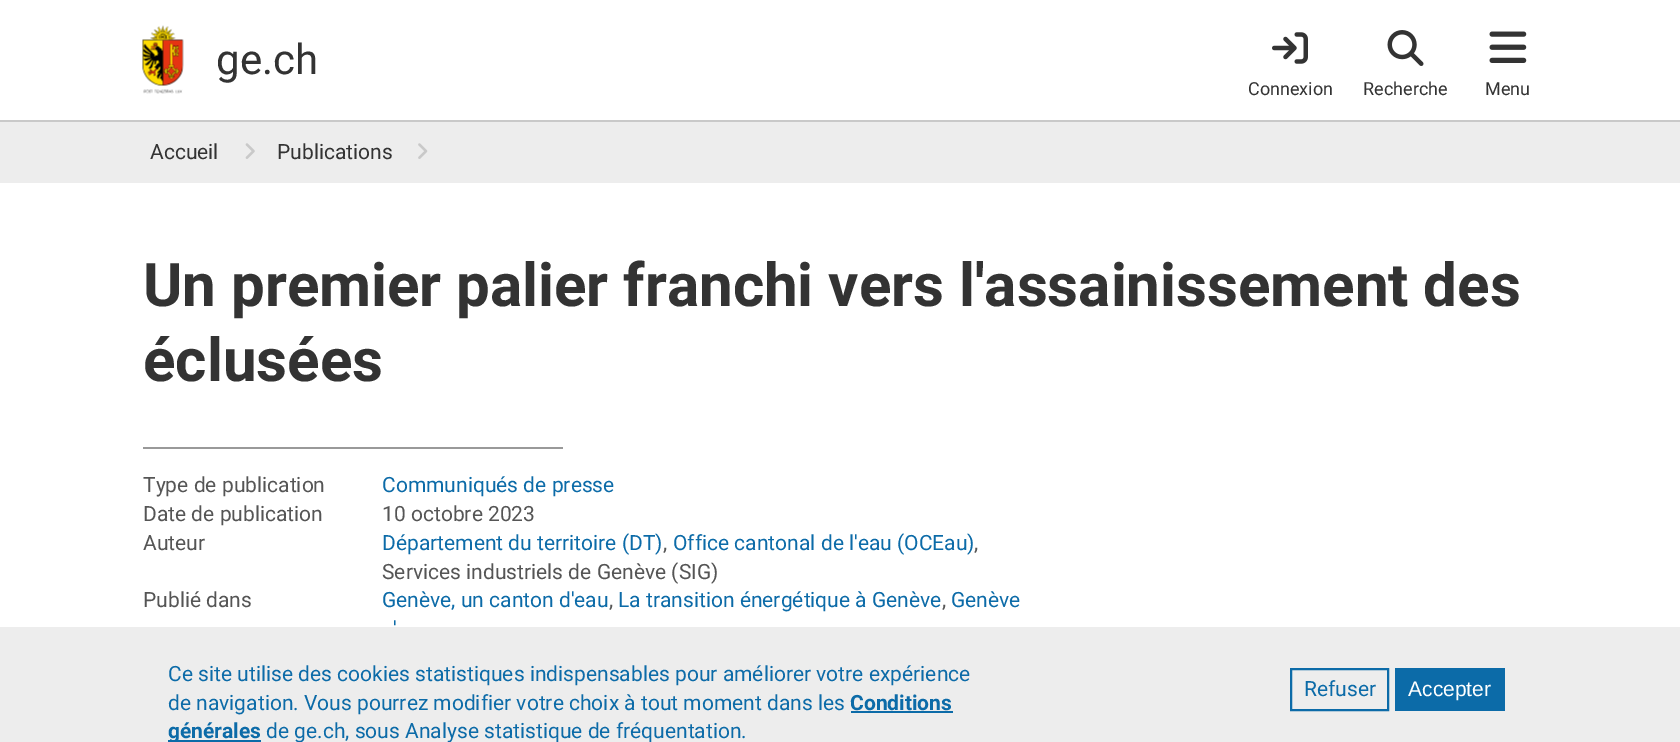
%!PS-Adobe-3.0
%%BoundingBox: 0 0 1680 742
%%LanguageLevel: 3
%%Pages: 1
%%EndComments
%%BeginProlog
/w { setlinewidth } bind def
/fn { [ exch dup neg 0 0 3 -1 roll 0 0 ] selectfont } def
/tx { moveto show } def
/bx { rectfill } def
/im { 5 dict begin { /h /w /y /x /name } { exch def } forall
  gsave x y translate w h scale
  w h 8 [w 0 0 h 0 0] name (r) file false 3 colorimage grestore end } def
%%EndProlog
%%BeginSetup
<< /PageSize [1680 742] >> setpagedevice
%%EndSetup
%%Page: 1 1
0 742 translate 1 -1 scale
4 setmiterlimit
1 setgray
0 0 1680 742 bx
0.788 setgray
0 120 1680 2 bx
(image0.raw) 142 25 42 69 im
/Roboto-Regular 42 fn
0.2 setgray
(ge.ch) 216 74 tx
(image1.raw) 1272 32 36 32 im
/Roboto-Regular 18 fn
(Connexion) 1248 95 tx
(image2.raw) 1387 30 37 36 im
(Recherche) 1363 95 tx
(image3.raw) 1489 31 38 32 im
(Menu) 1485 95 tx
0.929 setgray
0 122 1680 61 bx
/Roboto-Regular 21 fn
0.2 setgray
(Accueil) 150 159 tx
(image4.raw) 245 143 10 16 im
(Publications) 277 159 tx
(image5.raw) 418 143 10 16 im
/Roboto-Bold 60 fn
(Un premier palier franchi vers l'assainissement des) 143 306 tx
(éclusées) 143 381 tx
0.6 setgray
143 447 420 2 bx
/Roboto-Regular 21 fn
0.333 setgray
(Type de publication) 143 492 tx
0.047 0.42 0.659 setrgbcolor
(Communiqués de presse) 382 492 tx
0.333 setgray
(Date de publication) 143 521 tx
(10 octobre 2023) 382 521 tx
(Auteur) 143 550 tx
0.047 0.42 0.659 setrgbcolor
(Département du territoire \(DT\)) 382 550 tx
0.333 setgray
(,) 663 550 tx
0.047 0.42 0.659 setrgbcolor
(Office cantonal de l'eau \(OCEau\)) 673 550 tx
0.333 setgray
(,) 974 550 tx
(Services industriels de Genève \(SIG\)) 382 579 tx
(Publié dans) 143 607 tx
0.047 0.42 0.659 setrgbcolor
(Genève, un canton d'eau) 382 607 tx
0.333 setgray
(,) 609 607 tx
0.047 0.42 0.659 setrgbcolor
(La transition énergétique à Genève) 618 607 tx
0.333 setgray
(,) 942 607 tx
0.047 0.42 0.659 setrgbcolor
(Genève) 951 607 tx
(') 393 636 tx
0.929 setgray
0 627 1680 115 bx
0.047 0.42 0.659 setrgbcolor
(Ce site utilise des cookies statistiques indispensables pour améliorer votre expérience) 168 681 tx
(de navigation. Vous pourrez modifier votre choix à tout moment dans les) 168 710 tx
/Roboto-Bold 21 fn
(Conditions) 850 710 tx
851 711 102 2 bx
168 740 93 2 bx
(générales) 168 738 tx
/Roboto-Regular 21 fn
(de ge.ch, sous Analyse statistique de fréquentation.) 266 738 tx
2 w
1291 669 97 41 rectstroke
(Refuser) 1304 696 tx
1395 668 110 43 bx
/LiberationSans-Regular 21 fn
1 setgray
(Accepter) 1408 696 tx
showpage
%%EOF
